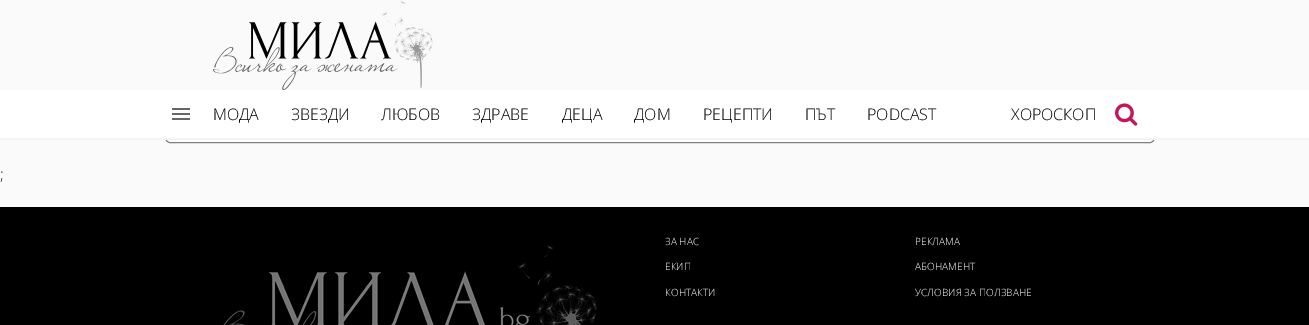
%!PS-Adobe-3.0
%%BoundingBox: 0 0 1309 325
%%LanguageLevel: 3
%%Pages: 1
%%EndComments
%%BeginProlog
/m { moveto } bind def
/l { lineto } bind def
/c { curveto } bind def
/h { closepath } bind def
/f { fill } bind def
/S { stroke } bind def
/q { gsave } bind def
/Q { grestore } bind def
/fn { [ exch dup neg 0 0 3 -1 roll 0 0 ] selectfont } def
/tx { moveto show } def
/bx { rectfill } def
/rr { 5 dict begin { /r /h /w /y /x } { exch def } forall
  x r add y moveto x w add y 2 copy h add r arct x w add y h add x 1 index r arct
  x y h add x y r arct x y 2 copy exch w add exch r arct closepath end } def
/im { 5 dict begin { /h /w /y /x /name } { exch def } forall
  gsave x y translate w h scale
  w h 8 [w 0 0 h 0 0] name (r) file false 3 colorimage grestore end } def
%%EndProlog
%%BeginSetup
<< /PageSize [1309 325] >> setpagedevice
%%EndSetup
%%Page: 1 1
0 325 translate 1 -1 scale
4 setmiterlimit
0.98 setgray
0 0 1309 325 bx
1 setgray
0 90 1309 48 bx
0.953 setgray
0 138 1309 2 bx
0.992 setgray
165 140 m 1155 140 l 1155 138 l 1155 141 1153 143 1150 143 c 170 143 l 167 143 165 141 165 138 c h f
q
155 140 1000 23 rectclip
0.502 setgray
165.5 19.5 989 123 4.5 rr S
Q
(image0.raw) 213 0 220 90 im
(image1.raw) 172 108 18 12 im
/OpenSans-Light 16 fn
0 setgray
(МОДА) 213 120 tx
(ЗВЕЗДИ) 291 120 tx
(ЛЮБОВ) 381 120 tx
(ЗДРАВЕ) 472 120 tx
(ДЕЦА) 562 120 tx
(ДОМ) 634 120 tx
(РЕЦЕПТИ) 703 120 tx
(ПЪТ) 805 120 tx
(PODCAST) 867 120 tx
(ХОРОСКОП) 1011 120 tx
(image2.raw) 1115 103 23 23 im
0.133 setgray
(;) 0 180 tx
0 setgray
0 207 1309 118 bx
(image3.raw) 223 245 374 80 im
/OpenSans-Light 10 fn
1 setgray
665 245 m 0.1 0 (ЗА НАС) ashow
665 270 m 0.1 0 (ЕКИП) ashow
665 296 m 0.1 0 (КОНТАКТИ) ashow
915 245 m 0.1 0 (РЕКЛАМА) ashow
915 270 m 0.1 0 (АБОНАМЕНТ) ashow
915 296 m 0.1 0 (УСЛОВИЯ ЗА ПОЛЗВАНЕ) ashow
showpage
%%EOF
